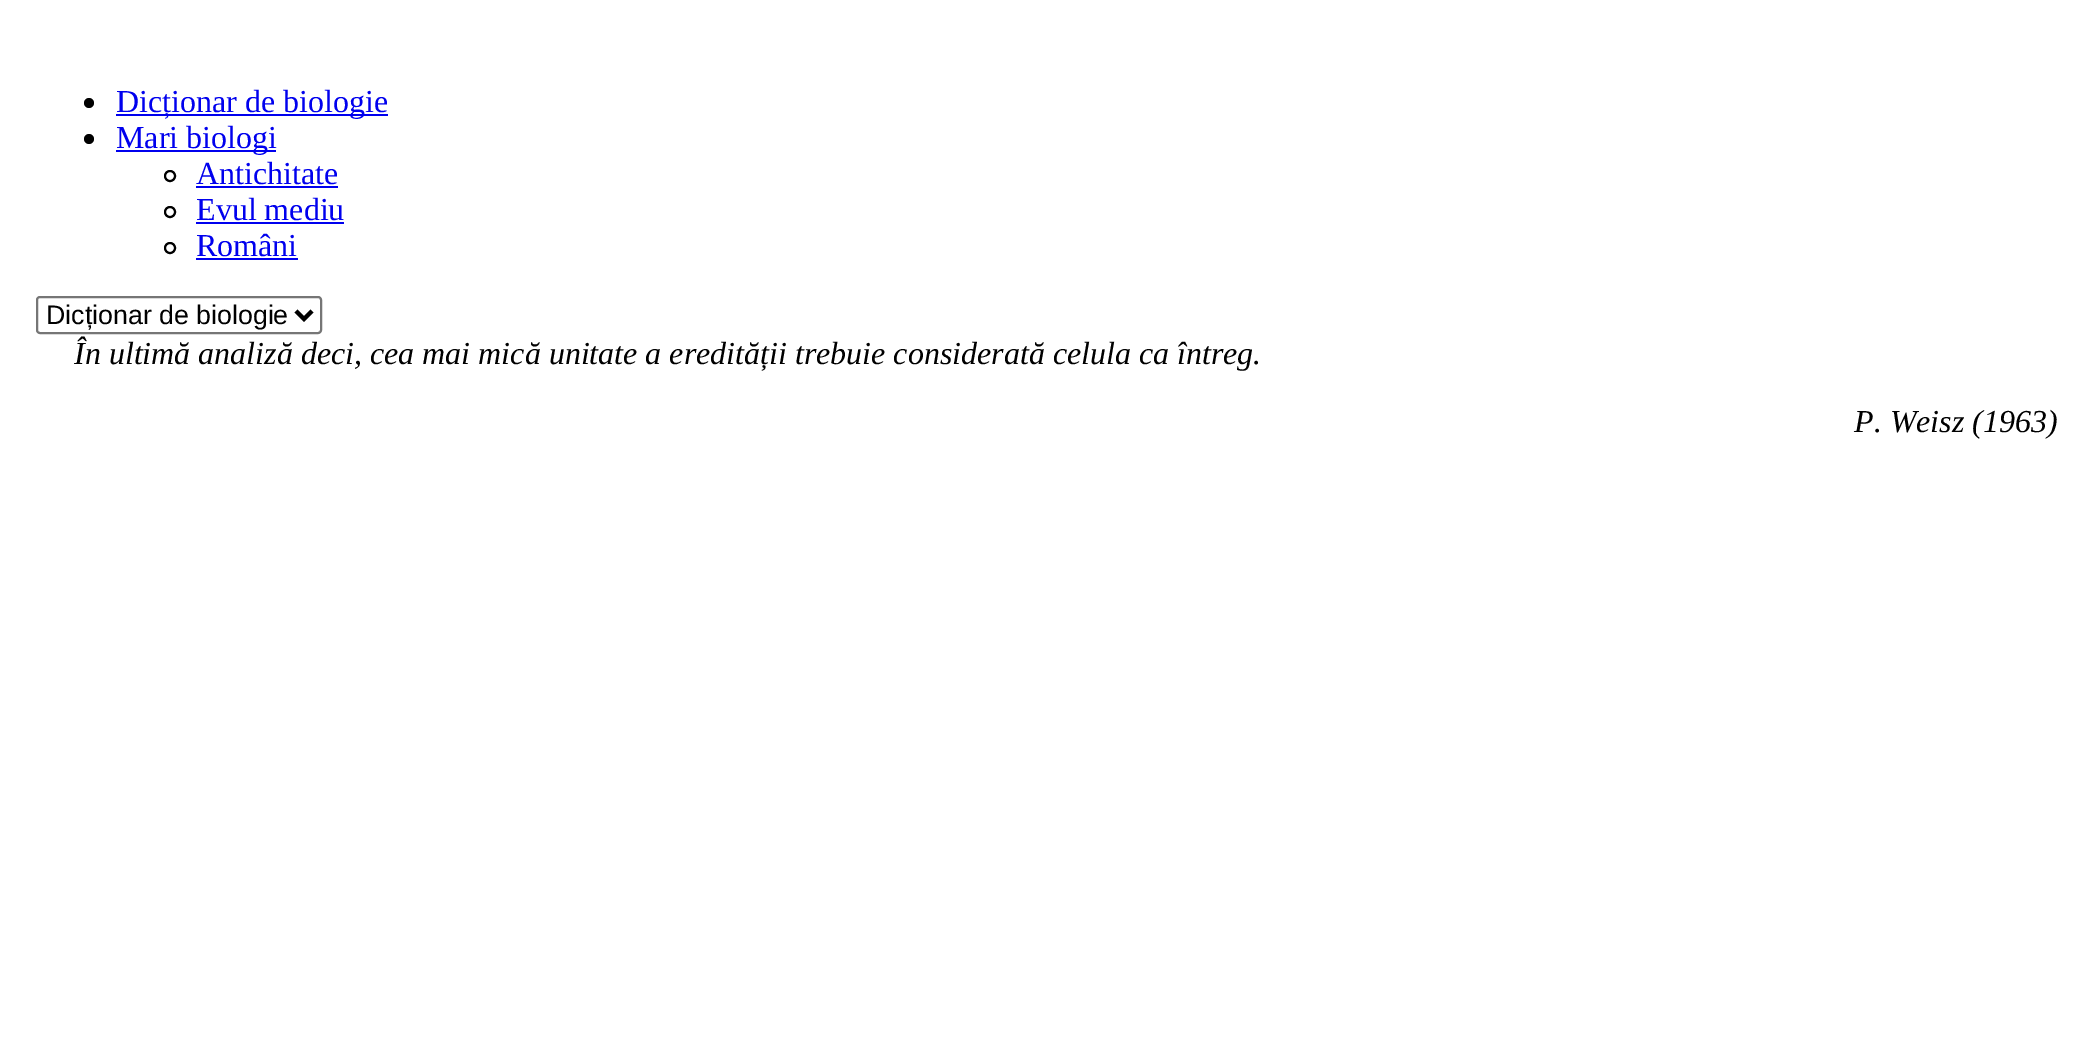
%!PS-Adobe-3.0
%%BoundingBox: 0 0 2094 1055
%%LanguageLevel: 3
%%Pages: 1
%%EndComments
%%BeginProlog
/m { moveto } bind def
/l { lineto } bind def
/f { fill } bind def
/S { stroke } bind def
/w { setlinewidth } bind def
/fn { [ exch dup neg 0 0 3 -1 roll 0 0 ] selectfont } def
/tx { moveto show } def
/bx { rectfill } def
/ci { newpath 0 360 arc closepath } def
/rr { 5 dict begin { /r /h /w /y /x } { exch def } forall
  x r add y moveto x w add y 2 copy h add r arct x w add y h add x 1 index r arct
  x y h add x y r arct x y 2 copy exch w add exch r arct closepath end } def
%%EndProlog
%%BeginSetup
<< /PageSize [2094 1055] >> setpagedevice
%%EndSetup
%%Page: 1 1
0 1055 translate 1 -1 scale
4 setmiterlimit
1 setgray
0 0 2094 1055 bx
0 setgray
89 103 5 ci f
0 0 0.933 setrgbcolor
116 114 272 2 bx
/LiberationSerif-Regular 32 fn
(Dicționar de biologie) 116 112 tx
0 setgray
89 139 5 ci f
0 0 0.933 setrgbcolor
116 150 160 2 bx
(Mari biologi) 116 148 tx
0 setgray
2 w
170 176 5 ci S
0 0 0.933 setrgbcolor
(Antichitate) 196 184 tx
196 186 142 2 bx
0 setgray
170 212 5 ci S
0 0 0.933 setrgbcolor
(Evul mediu) 196 220 tx
196 222 148 2 bx
0 setgray
170 248 5 ci S
0 0 0.933 setrgbcolor
(Români) 196 256 tx
196 258 102 2 bx
0.463 setgray
37 297 284 36 3 rr S
0 setgray
4 w
296 311 m 304 319 l 312 311 l S
/LiberationSans-Regular 26.75 fn
(Dicționar de biologie) 46 324 tx
/LiberationSerif-Italic 32 fn
(În ultimă analiză deci, cea mai mică unitate a eredității trebuie considerată celula ca întreg.) 74 364 tx
(P. Weisz \(1963\)) 1854 432 tx
showpage
%%EOF
